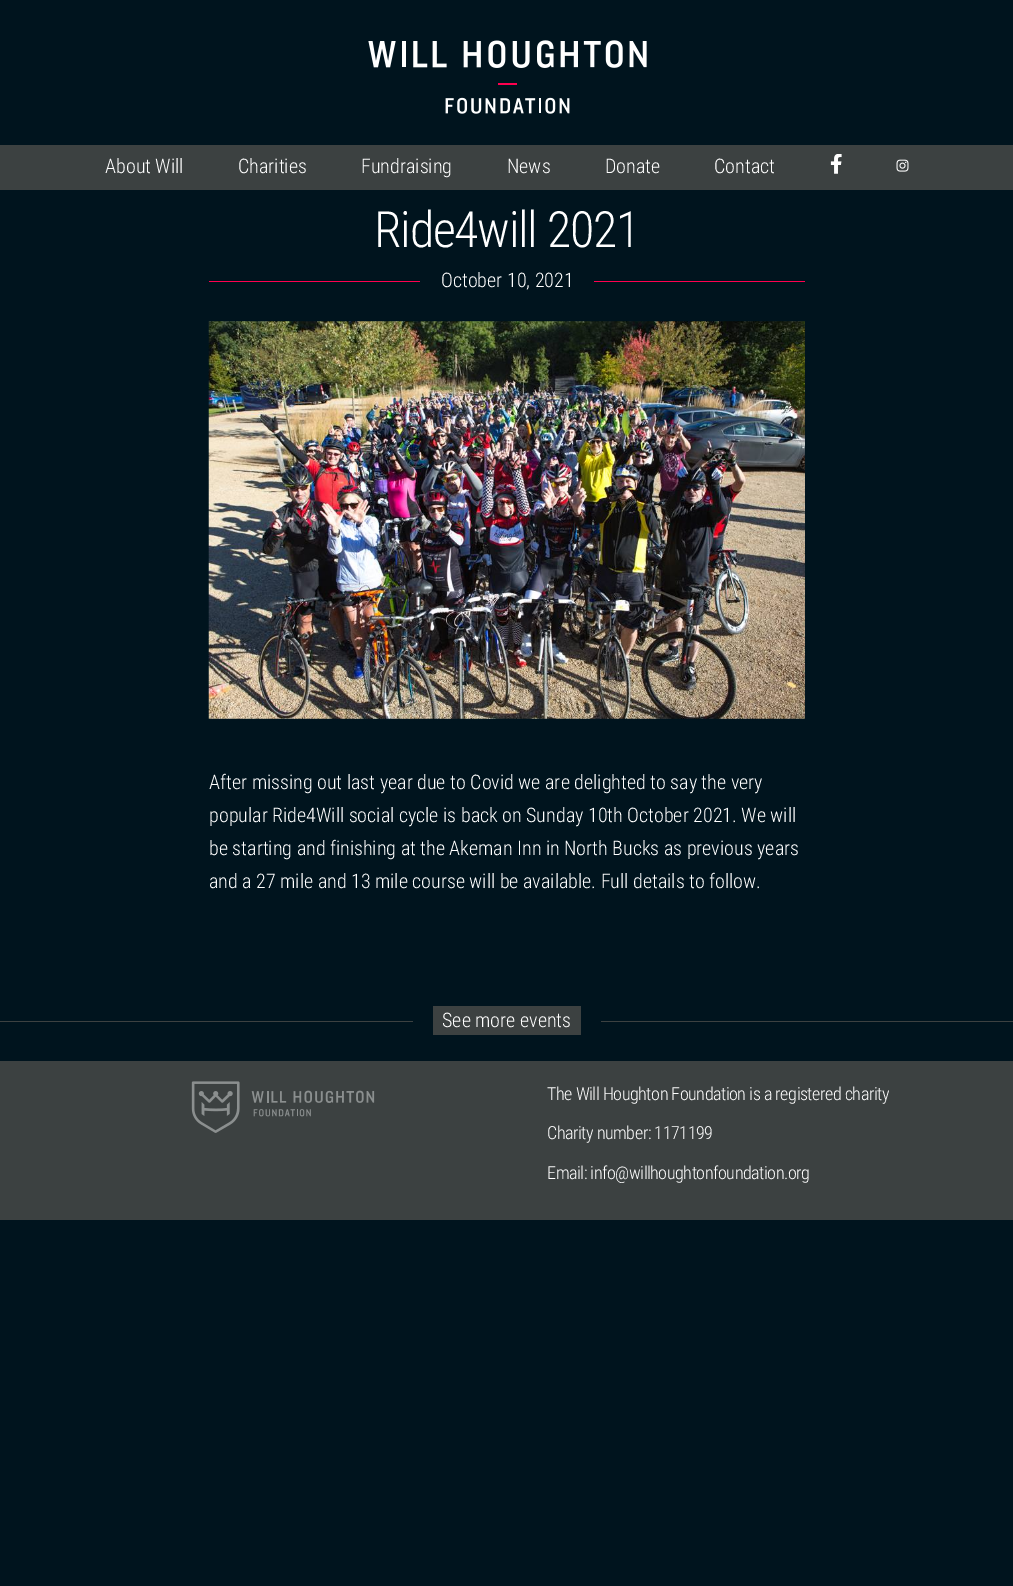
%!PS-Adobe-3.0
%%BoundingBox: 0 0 1013 1586
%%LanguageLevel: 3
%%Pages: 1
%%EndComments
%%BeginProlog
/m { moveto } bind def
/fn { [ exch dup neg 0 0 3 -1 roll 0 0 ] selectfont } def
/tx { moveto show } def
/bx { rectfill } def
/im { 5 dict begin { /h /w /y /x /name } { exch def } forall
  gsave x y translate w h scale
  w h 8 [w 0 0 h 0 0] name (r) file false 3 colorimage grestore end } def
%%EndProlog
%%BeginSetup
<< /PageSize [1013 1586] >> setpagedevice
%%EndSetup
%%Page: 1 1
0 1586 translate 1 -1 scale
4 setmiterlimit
0 0.078 0.118 setrgbcolor
0 0 1013 1586 bx
(image0.raw) 368 40 279 74 im
0.235 0.255 0.255 setrgbcolor
0 145 1013 45 bx
/RobotoCondensed-Light 20 fn
1 setgray
(About Will) 105 173 tx
(Charities) 238 173 tx
(Fundraising) 361 173 tx
(News) 507 173 tx
(Donate) 605 173 tx
(Contact) 714 173 tx
(image1.raw) 830 154 12 20 im
(image2.raw) 896 159 13 13 im
/RobotoCondensed-Light 50 fn
374 247 m -1.25 0 (Ride4will 2021) ashow
1 0 0.31 setrgbcolor
209 281 211 1 bx
/RobotoCondensed-Light 20 fn
1 setgray
(October 10, 2021) 441 287 tx
1 0 0.31 setrgbcolor
594 281 211 1 bx
(image3.raw) 208 321 597 398 im
1 setgray
(After missing out last year due to Covid we are delighted to say the very) 209 789 tx
(popular Ride4Will social cycle is back on Sunday 10th October 2021. We will) 209 822 tx
(be starting and finishing at the Akeman Inn in North Bucks as previous years) 209 855 tx
(and a 27 mile and 13 mile course will be available. Full details to follow.) 209 888 tx
0.235 0.255 0.255 setrgbcolor
0 1021 413 1 bx
433 1006 148 29 bx
1 setgray
(See more events) 442 1027 tx
0.235 0.255 0.255 setrgbcolor
601 1021 412 1 bx
0 1061 1013 159 bx
(image4.raw) 191 1081 184 52 im
/RobotoCondensed-Light 18 fn
1 setgray
547 1100 m -0.45 0 (The Will Houghton Foundation is a registered charity) ashow
547 1139 m -0.45 0 (Charity number: 1171199) ashow
547 1179 m -0.45 0 (Email: info@willhoughtonfoundation.org) ashow
showpage
%%EOF
